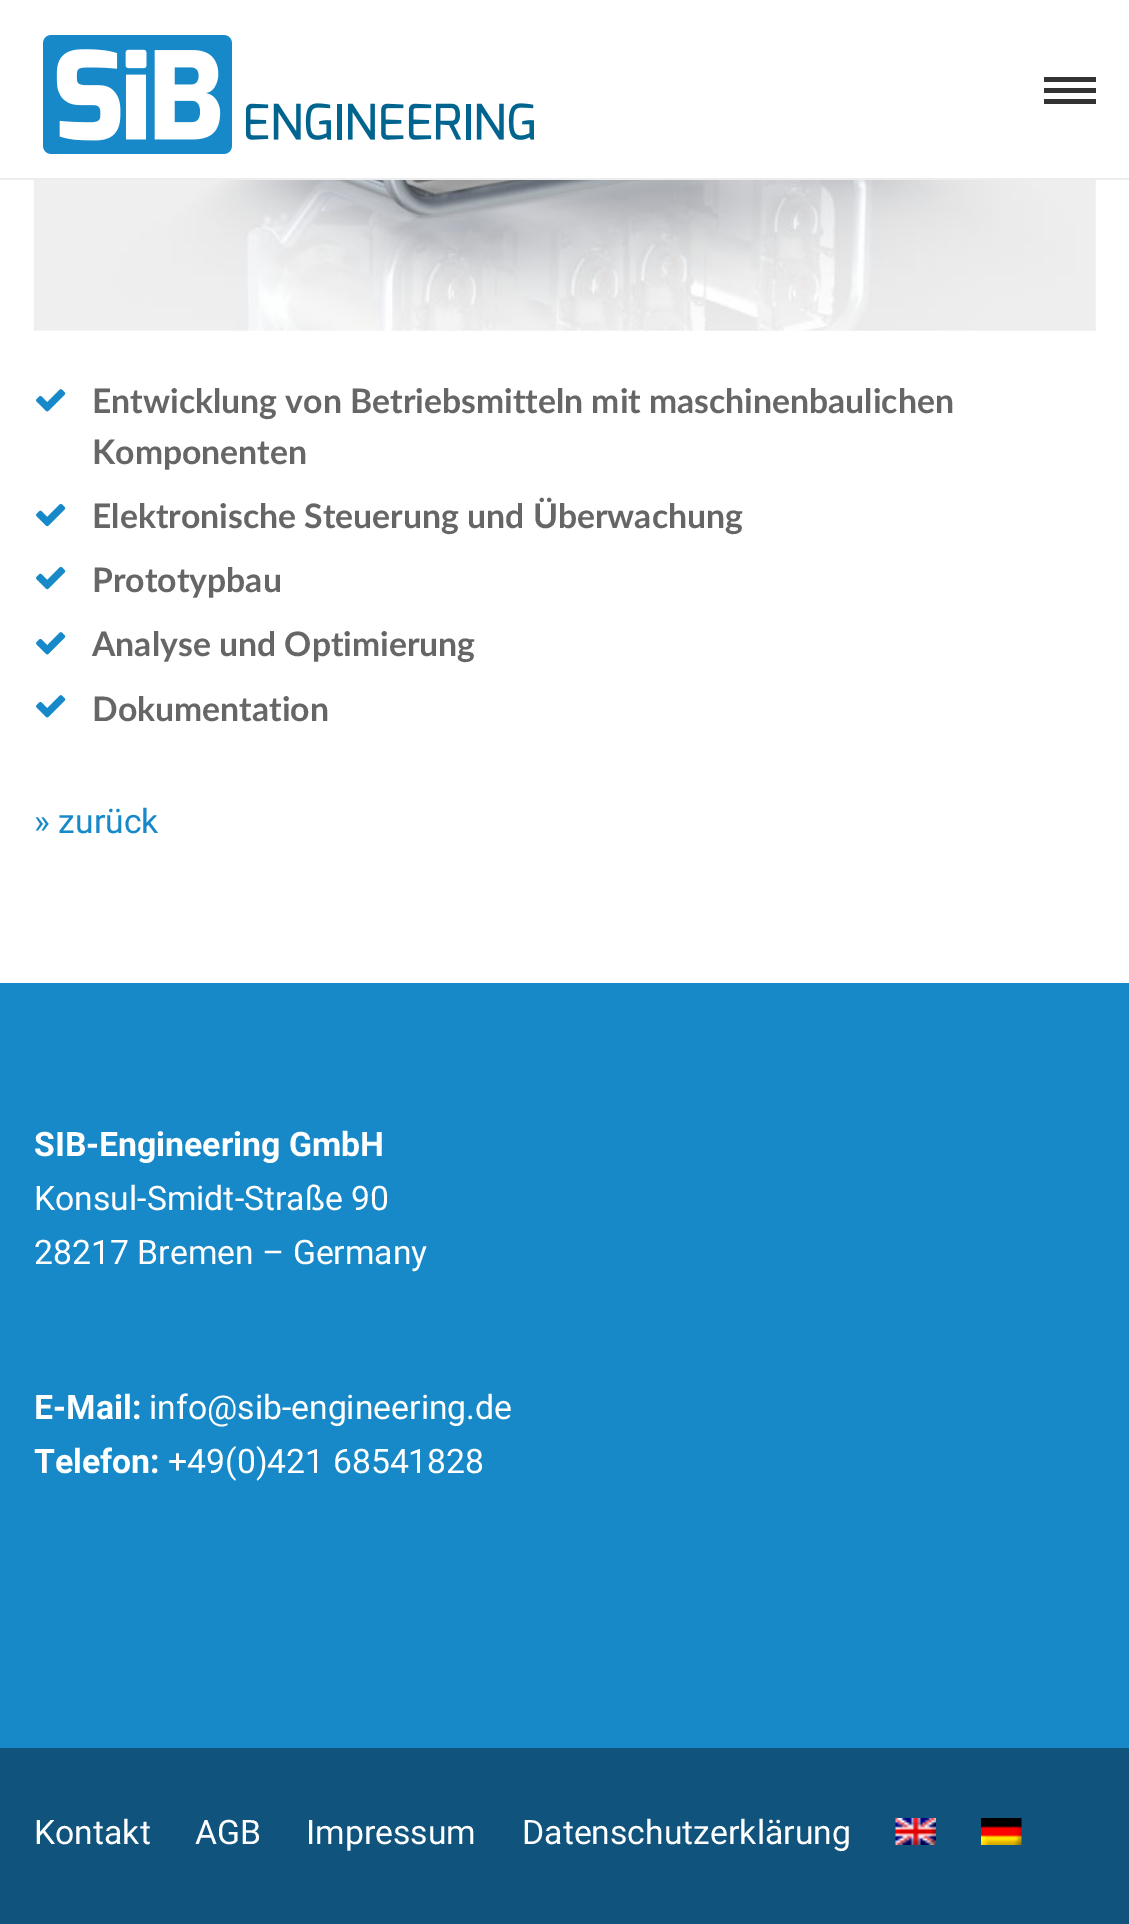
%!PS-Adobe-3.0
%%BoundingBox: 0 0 1129 1924
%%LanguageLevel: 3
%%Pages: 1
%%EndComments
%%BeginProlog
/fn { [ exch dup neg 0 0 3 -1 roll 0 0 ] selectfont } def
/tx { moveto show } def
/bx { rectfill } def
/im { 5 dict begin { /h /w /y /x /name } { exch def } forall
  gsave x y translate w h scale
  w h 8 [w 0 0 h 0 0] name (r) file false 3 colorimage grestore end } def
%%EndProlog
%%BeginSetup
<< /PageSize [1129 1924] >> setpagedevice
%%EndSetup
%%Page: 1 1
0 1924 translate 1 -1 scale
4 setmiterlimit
1 setgray
0 0 1129 1924 bx
0.929 setgray
0 178 1129 2 bx
(image0.raw) 43 35 491 119 im
0.2 setgray
1044 77 52 5 bx
1044 88 52 5 bx
1044 99 52 5 bx
(image1.raw) 33 180 1063 151 im
(image2.raw) 36 389 30 23 im
/Lato-Bold 33.75 fn
0.4 setgray
(Entwicklung von Betriebsmitteln mit maschinenbaulichen) 92 413 tx
(Komponenten) 92 464 tx
(image3.raw) 36 503 30 24 im
(Elektronische Steuerung und Überwachung) 92 528 tx
(image3.raw) 36 566 30 24 im
(Prototypbau) 92 592 tx
(image2.raw) 36 632 30 23 im
(Analyse und Optimierung) 92 656 tx
(image2.raw) 36 695 30 23 im
(Dokumentation) 92 721 tx
/Roboto-Regular 33.75 fn
0.09 0.537 0.784 setrgbcolor
(» zurück) 34 833 tx
0 983 1129 765 bx
/Roboto-Bold 33.75 fn
1 setgray
(SIB-Engineering GmbH) 34 1156 tx
/Roboto-Regular 33.75 fn
(Konsul-Smidt-Straße 90) 34 1210 tx
(28217 Bremen – Germany) 34 1264 tx
/Roboto-Bold 33.75 fn
(E-Mail:) 34 1419 tx
/Roboto-Regular 33.75 fn
(info@sib-engineering.de) 149 1419 tx
/Roboto-Bold 33.75 fn
(Telefon:) 34 1473 tx
/Roboto-Regular 33.75 fn
(+49\(0\)421 68541828) 168 1473 tx
0.063 0.325 0.49 setrgbcolor
0 1748 1129 176 bx
1 setgray
(Kontakt) 34 1844 tx
(AGB) 195 1844 tx
(Impressum) 306 1844 tx
(Datenschutzerklärung) 522 1844 tx
(image4.raw) 895 1818 41 27 im
(image5.raw) 981 1818 41 27 im
showpage
%%EOF
